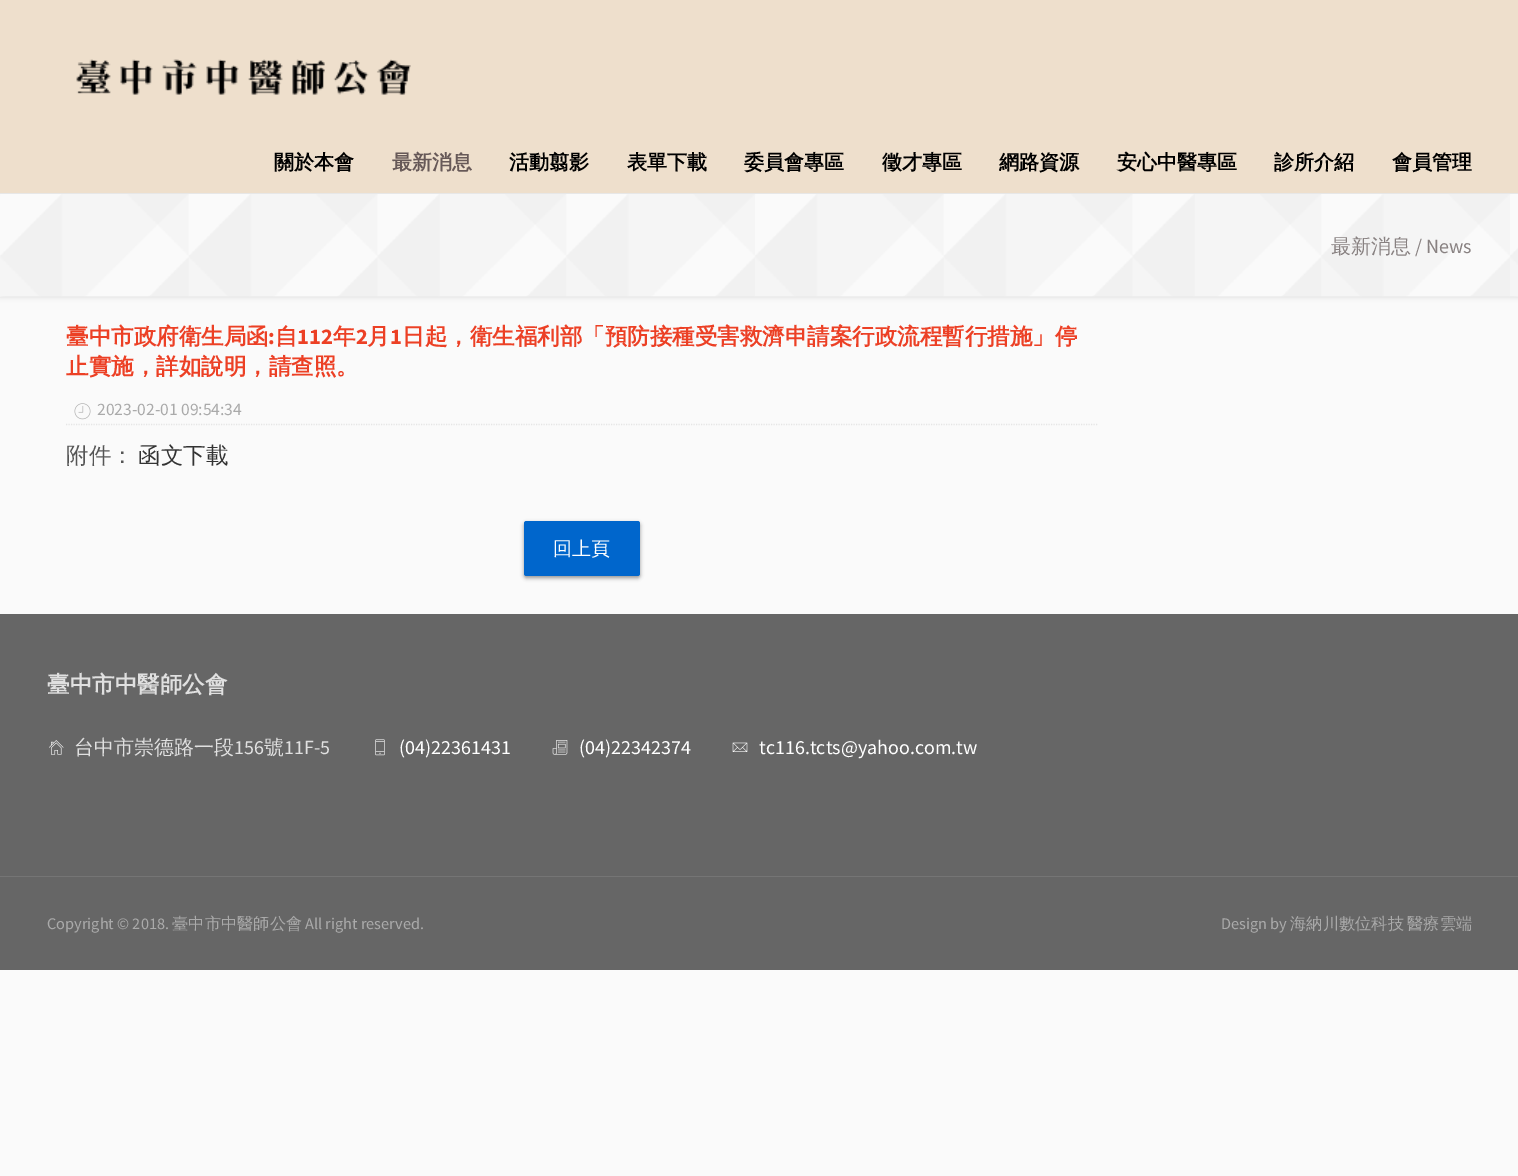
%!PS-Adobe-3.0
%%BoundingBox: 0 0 1518 1176
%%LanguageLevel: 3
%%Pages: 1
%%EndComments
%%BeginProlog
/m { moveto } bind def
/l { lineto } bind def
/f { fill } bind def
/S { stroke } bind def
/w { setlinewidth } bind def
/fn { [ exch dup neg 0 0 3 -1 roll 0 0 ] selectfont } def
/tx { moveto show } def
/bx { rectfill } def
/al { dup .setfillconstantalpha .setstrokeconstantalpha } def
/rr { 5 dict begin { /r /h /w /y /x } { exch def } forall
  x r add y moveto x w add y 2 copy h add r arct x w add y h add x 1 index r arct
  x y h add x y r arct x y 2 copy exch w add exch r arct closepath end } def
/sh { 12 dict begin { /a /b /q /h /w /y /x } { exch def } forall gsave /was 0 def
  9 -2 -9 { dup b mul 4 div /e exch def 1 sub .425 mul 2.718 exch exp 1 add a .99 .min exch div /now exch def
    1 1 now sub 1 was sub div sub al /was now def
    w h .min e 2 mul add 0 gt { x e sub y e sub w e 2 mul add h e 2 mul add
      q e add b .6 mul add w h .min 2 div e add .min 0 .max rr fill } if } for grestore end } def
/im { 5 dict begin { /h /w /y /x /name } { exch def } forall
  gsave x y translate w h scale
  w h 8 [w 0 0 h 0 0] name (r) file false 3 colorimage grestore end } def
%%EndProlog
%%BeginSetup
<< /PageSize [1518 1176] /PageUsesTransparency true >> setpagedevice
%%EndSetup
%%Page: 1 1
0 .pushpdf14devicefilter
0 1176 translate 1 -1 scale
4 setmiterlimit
0.98 setgray
0 0 1518 1176 bx
0.8 setgray
0 194 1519 102 0 3 1 sh
0.933 0.875 0.8 setrgbcolor
0 0 1518 193 bx
0.906 setgray
0 193 1518 1 bx
(image0.raw) 76 59 335 36 im
/WenQuanYiZenHei-Bold 20 fn
0 setgray
(關於本會) 274 169 tx
0.404 0.349 0.345 setrgbcolor
(最新消息) 392 169 tx
0 setgray
(活動翦影) 509 169 tx
(表單下載) 627 169 tx
(委員會專區) 744 169 tx
(徵才專區) 882 169 tx
(網路資源) 999 169 tx
(安心中醫專區) 1117 169 tx
(診所介紹) 1274 169 tx
(會員管理) 1392 169 tx
(image1.raw) 0 194 1518 103 im
/WenQuanYiZenHei-Medium 20 fn
0.533 0.506 0.506 setrgbcolor
(最新消息) 1331 253 tx
/SourceSansPro-Regular 20 fn
(/ News) 1415 253 tx
/WenQuanYiZenHei-Bold 22.5 fn
0.925 0.251 0.145 setrgbcolor
(臺中市政府衛生局函 自) 66 344 tx
/SourceSansPro-Bold 22.5 fn
(112) 297 344 tx
/WenQuanYiZenHei-Bold 22.5 fn
(年) 333 344 tx
/SourceSansPro-Bold 22.5 fn
(2) 356 344 tx
/WenQuanYiZenHei-Bold 22.5 fn
(月) 367 344 tx
/SourceSansPro-Bold 22.5 fn
(1) 390 344 tx
/WenQuanYiZenHei-Bold 22.5 fn
(日起，衛生福利部「預防接種受害救濟申請案行政流程暫行措施」停) 402 344 tx
/SourceSansPro-Bold 22.5 fn
(:) 268 344 tx
/WenQuanYiZenHei-Bold 22.5 fn
(止實施，詳如說明，請查照。) 66 374 tx
0.898 setgray
1.2 w
[1.25 1.25] 0 setdash
66 424.5 m 1097.5 424.5 l S
(image2.raw) 74 403 17 17 im
/SourceSansPro-Regular 17.5 fn
0.667 setgray
(2023-02-01 09:54:34) 97 415 tx
/WenQuanYiZenHei-Medium 22.5 fn
0.333 setgray
(附件：) 66 463 tx
0.2 setgray
(函文下載) 138 463 tx
0 setgray
524 523 116 55 2.5 2 0.4 sh
0 0.4 0.8 setrgbcolor
524 521 116 55 2.5 rr f
/WenQuanYiZenHei-Medium 19 fn
1 setgray
(回上頁) 553 555 tx
0.4 setgray
0 614 1518 356 bx
/WenQuanYiZenHei-Bold 22.5 fn
0.878 setgray
(臺中市中醫師公會) 47 692 tx
(image3.raw) 49 740 15 15 im
/WenQuanYiZenHei-Medium 20 fn
(台中市崇德路一段) 74 754 tx
/SourceSansPro-Regular 20 fn
(156) 234 754 tx
/WenQuanYiZenHei-Medium 20 fn
(號) 264 754 tx
/SourceSansPro-Regular 20 fn
(11F-5) 284 754 tx
(image4.raw) 375 739 10 17 im
1 setgray
(\(04\)22361431) 399 754 tx
(image5.raw) 552 740 16 15 im
(\(04\)22342374) 579 754 tx
(image6.raw) 732 742 16 10 im
(tc116.tcts@yahoo.com.tw) 759 754 tx
0.459 setgray
0 876 1518 1 bx
/SourceSansPro-Regular 16.25 fn
0.667 setgray
(Copyright © 2018.) 47 929 tx
/WenQuanYiZenHei-Medium 16.25 fn
(臺中市中醫師公會) 172 929 tx
/SourceSansPro-Regular 16.25 fn
(All right reserved.) 305 929 tx
(Design by) 1221 929 tx
/WenQuanYiZenHei-Medium 16.25 fn
(海納川數位科技) 1290 929 tx
(醫療雲端) 1407 929 tx
.poppdf14devicefilter showpage
%%EOF
